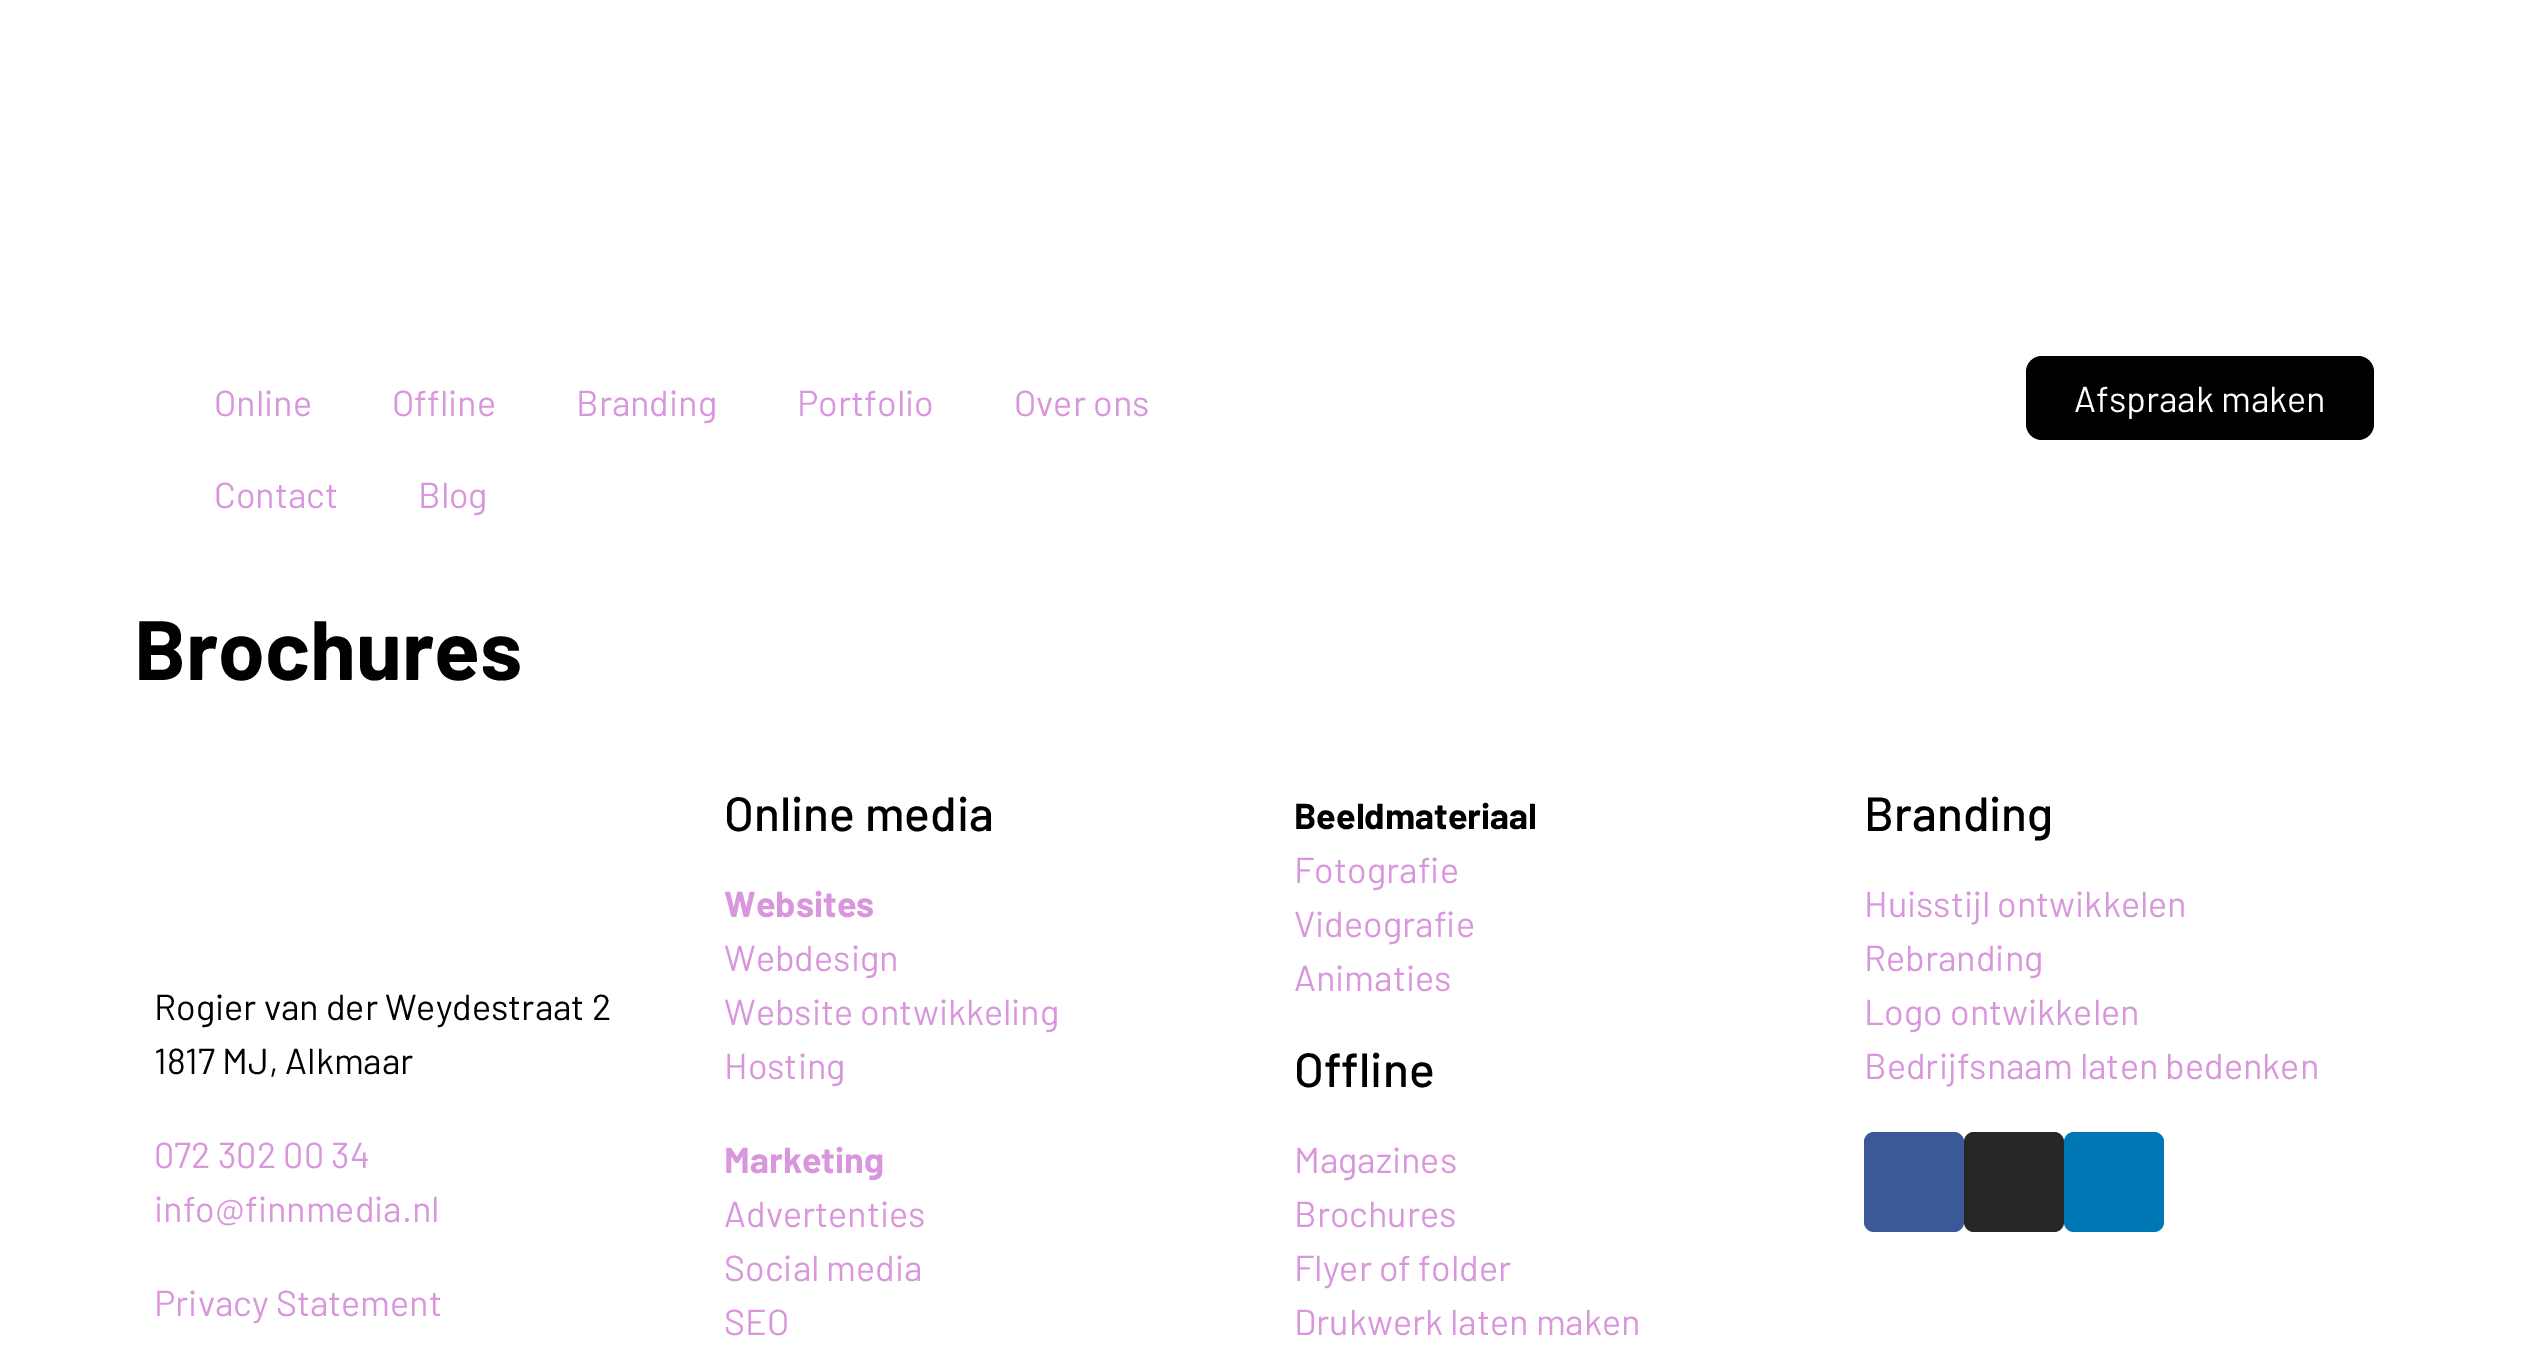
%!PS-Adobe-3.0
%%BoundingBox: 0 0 2547 1349
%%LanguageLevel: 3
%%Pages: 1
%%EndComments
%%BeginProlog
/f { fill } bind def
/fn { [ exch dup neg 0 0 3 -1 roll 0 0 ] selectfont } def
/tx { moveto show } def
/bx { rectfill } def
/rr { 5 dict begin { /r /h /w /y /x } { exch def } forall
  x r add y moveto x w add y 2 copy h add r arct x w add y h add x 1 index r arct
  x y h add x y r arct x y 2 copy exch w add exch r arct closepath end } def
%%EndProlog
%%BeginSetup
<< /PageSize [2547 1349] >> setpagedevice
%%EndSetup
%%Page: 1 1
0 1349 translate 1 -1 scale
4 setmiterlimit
1 setgray
0 0 2547 1349 bx
/Barlow-Regular 36 fn
0.851 0.588 0.863 setrgbcolor
(Online) 214 416 tx
(Offline) 392 416 tx
(Branding) 576 416 tx
(Portfolio) 797 416 tx
(Over ons) 1014 416 tx
(Contact) 214 508 tx
(Blog) 418 508 tx
0 setgray
2026 356 348 84 16 rr f
1 setgray
(Afspraak maken) 2074 412 tx
/Barlow-Bold 84 fn
0 setgray
(Brochures) 134 680 tx
/Barlow-Regular 36 fn
(Rogier van der Weydestraat 2) 154 1020 tx
(1817 MJ, Alkmaar) 154 1074 tx
0.851 0.588 0.863 setrgbcolor
(072 302 00 34) 154 1168 tx
(info@finnmedia.nl) 154 1222 tx
(Privacy Statement) 154 1316 tx
/Barlow-Medium 48 fn
0 setgray
(Online media) 724 831 tx
/Barlow-Bold 36 fn
0.851 0.588 0.863 setrgbcolor
(Websites) 724 917 tx
/Barlow-Regular 36 fn
(Webdesign) 724 971 tx
(Website ontwikkeling) 724 1025 tx
(Hosting) 724 1079 tx
/Barlow-Bold 36 fn
(Marketing) 724 1173 tx
/Barlow-Regular 36 fn
(Advertenties) 724 1227 tx
(Social media) 724 1281 tx
(SEO) 724 1335 tx
/Barlow-Bold 36 fn
0 setgray
(Beeldmateriaal) 1294 829 tx
/Barlow-Regular 36 fn
0.851 0.588 0.863 setrgbcolor
(Fotografie) 1294 883 tx
(Videografie) 1294 937 tx
(Animaties) 1294 991 tx
/Barlow-Medium 48 fn
0 setgray
(Offline) 1294 1087 tx
/Barlow-Regular 36 fn
0.851 0.588 0.863 setrgbcolor
(Magazines) 1294 1173 tx
(Brochures) 1294 1227 tx
(Flyer of folder) 1294 1281 tx
(Drukwerk laten maken) 1294 1335 tx
/Barlow-Medium 48 fn
0 setgray
(Branding) 1864 831 tx
/Barlow-Regular 36 fn
0.851 0.588 0.863 setrgbcolor
(Huisstijl ontwikkelen) 1864 917 tx
(Rebranding) 1864 971 tx
(Logo ontwikkelen) 1864 1025 tx
(Bedrijfsnaam laten bedenken) 1864 1079 tx
0.231 0.349 0.596 setrgbcolor
1864 1132 100 100 10 rr f
0.149 setgray
1964 1132 100 100 10 rr f
0 0.467 0.71 setrgbcolor
2064 1132 100 100 10 rr f
showpage
%%EOF
